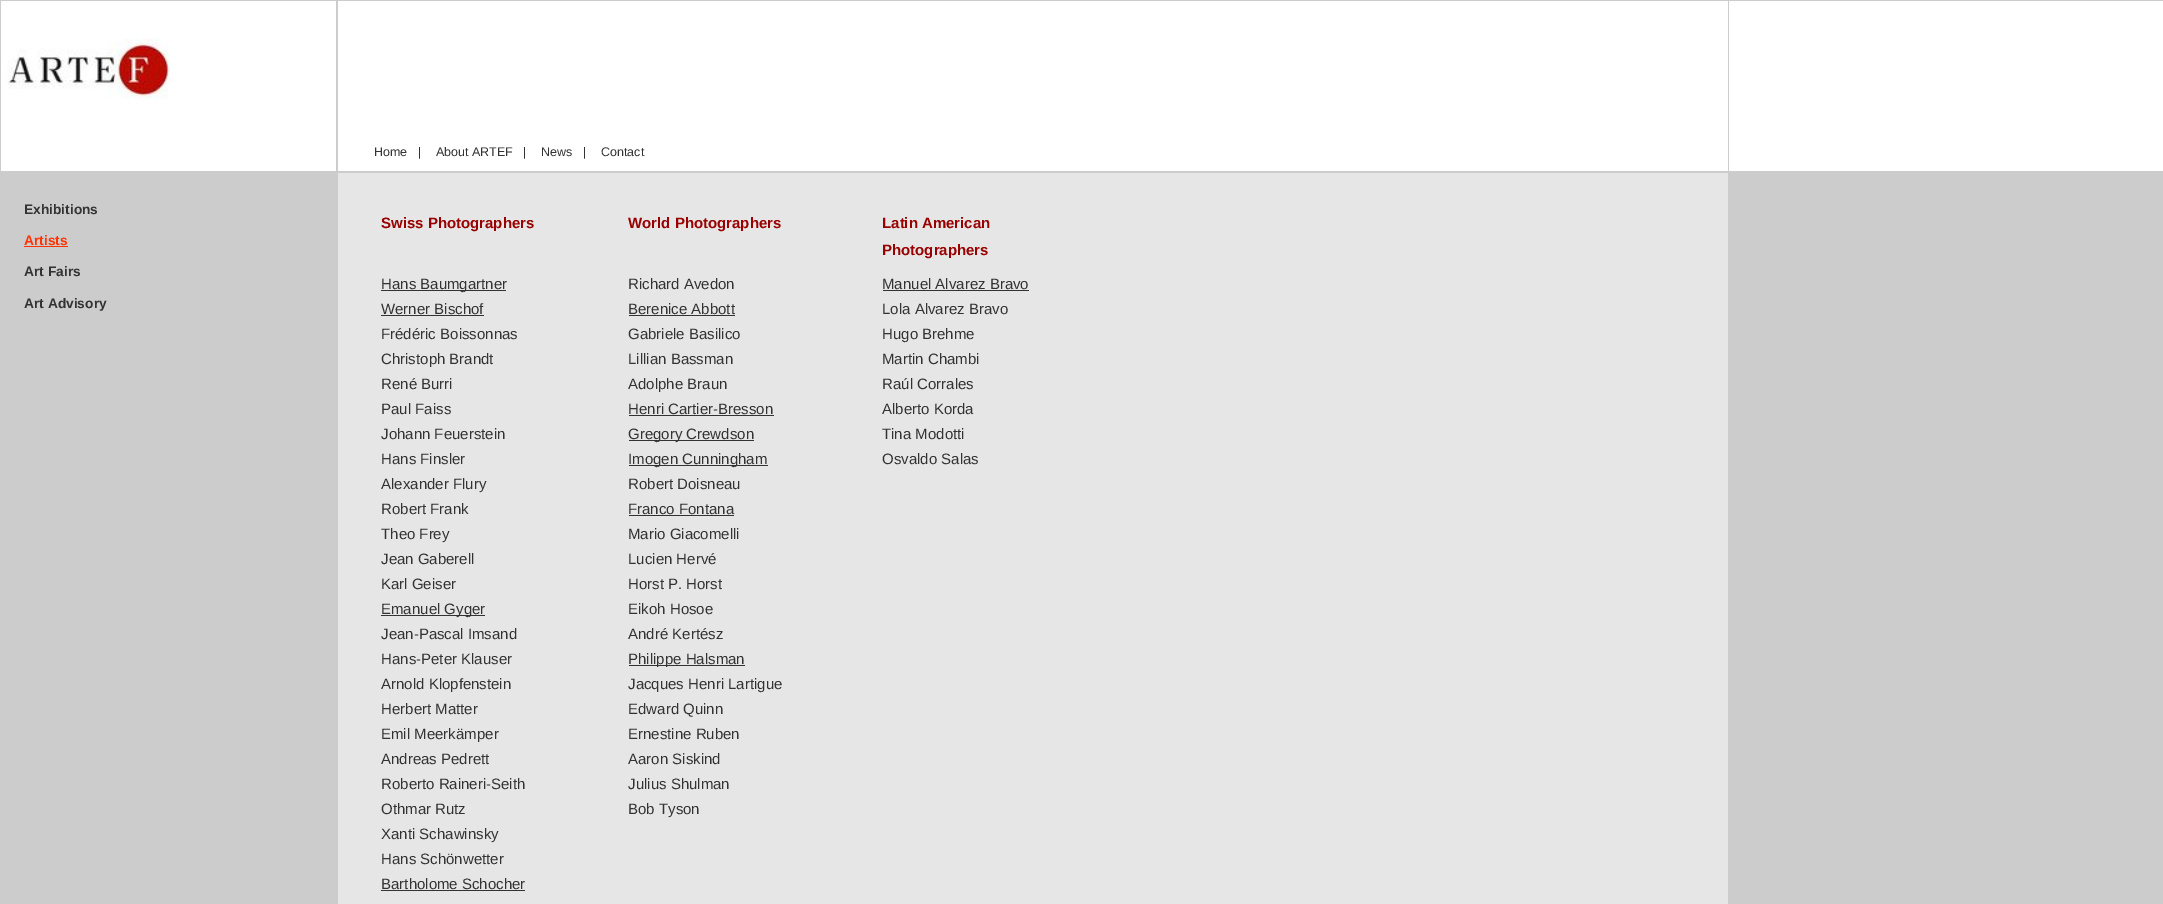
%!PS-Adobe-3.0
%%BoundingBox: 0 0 2163 904
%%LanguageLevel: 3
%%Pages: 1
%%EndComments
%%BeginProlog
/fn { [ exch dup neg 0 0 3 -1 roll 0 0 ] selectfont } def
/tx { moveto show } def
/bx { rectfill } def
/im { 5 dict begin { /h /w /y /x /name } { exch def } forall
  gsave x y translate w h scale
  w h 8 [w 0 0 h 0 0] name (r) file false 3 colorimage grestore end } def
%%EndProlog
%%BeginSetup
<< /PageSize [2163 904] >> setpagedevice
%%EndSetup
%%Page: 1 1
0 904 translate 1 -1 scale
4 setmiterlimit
0.8 setgray
0 0 2163 904 bx
1 setgray
1 1 335 170 bx
(image0.raw) 7 39 163 61 im
338 1 1390 170 bx
/LiberationSans-Regular 12.5 fn
0.2 setgray
(Home) 374 156 tx
(|) 418 156 tx
(About ARTEF) 436 156 tx
(|) 523 156 tx
(News) 541 156 tx
(|) 583 156 tx
(Contact) 601 156 tx
1 setgray
1729 1 434 170 bx
/LiberationSans-Bold 13.75 fn
0.2 setgray
(Exhibitions) 24 214 tx
1 0.2 0 setrgbcolor
(Artists) 24 245 tx
24 246 44 1 bx
0.2 setgray
(Art Fairs) 24 276 tx
(Art Advisory) 24 308 tx
0.902 setgray
338 173 1390 731 bx
/LiberationSans-Bold 15 fn
0.6 0 0 setrgbcolor
(Swiss Photographers) 381 228 tx
(World Photographers) 628 228 tx
(Latin American) 882 228 tx
(Photographers) 882 255 tx
0.2 setgray
381 290 125 1 bx
/LiberationSans-Regular 15 fn
(Hans Baumgartner) 381 289 tx
(Werner Bischof) 381 314 tx
381 315 103 1 bx
(Frédéric Boissonnas) 381 339 tx
(Christoph Brandt) 381 364 tx
(René Burri) 381 389 tx
(Paul Faiss) 381 414 tx
(Johann Feuerstein) 381 439 tx
(Hans Finsler) 381 464 tx
(Alexander Flury) 381 489 tx
(Robert Frank) 381 514 tx
(Theo Frey) 381 539 tx
(Jean Gaberell) 381 564 tx
(Karl Geiser) 381 589 tx
381 615 104 1 bx
(Emanuel Gyger) 381 614 tx
(Jean-Pascal Imsand) 381 639 tx
(Hans-Peter Klauser) 381 664 tx
(Arnold Klopfenstein) 381 689 tx
(Herbert Matter) 381 714 tx
(Emil Meerkämper) 381 739 tx
(Andreas Pedrett) 381 764 tx
(Roberto Raineri-Seith) 381 789 tx
(Othmar Rutz) 381 814 tx
(Xanti Schawinsky) 381 839 tx
(Hans Schönwetter) 381 864 tx
(Bartholome Schocher) 381 889 tx
381 890 144 1 bx
(Richard Avedon) 628 289 tx
(Berenice Abbott) 628 314 tx
629 315 106 1 bx
(Gabriele Basilico) 628 339 tx
(Lillian Bassman) 628 364 tx
(Adolphe Braun) 628 389 tx
(Henri Cartier-Bresson) 628 414 tx
629 415 145 1 bx
629 440 125 1 bx
(Gregory Crewdson) 628 439 tx
629 465 139 1 bx
(Imogen Cunningham) 628 464 tx
(Robert Doisneau) 628 489 tx
(Franco Fontana) 628 514 tx
629 515 105 1 bx
(Mario Giacomelli) 628 539 tx
(Lucien Hervé) 628 564 tx
(Horst P. Horst) 628 589 tx
(Eikoh Hosoe) 628 614 tx
(André Kertész) 628 639 tx
629 665 116 1 bx
(Philippe Halsman) 628 664 tx
(Jacques Henri Lartigue) 628 689 tx
(Edward Quinn) 628 714 tx
(Ernestine Ruben) 628 739 tx
(Aaron Siskind) 628 764 tx
(Julius Shulman) 628 789 tx
(Bob Tyson) 628 814 tx
(Manuel Alvarez Bravo) 882 289 tx
883 290 146 1 bx
(Lola Alvarez Bravo) 882 314 tx
(Hugo Brehme) 882 339 tx
(Martin Chambi) 882 364 tx
(Raúl Corrales) 882 389 tx
(Alberto Korda) 882 414 tx
(Tina Modotti) 882 439 tx
(Osvaldo Salas) 882 464 tx
showpage
%%EOF
